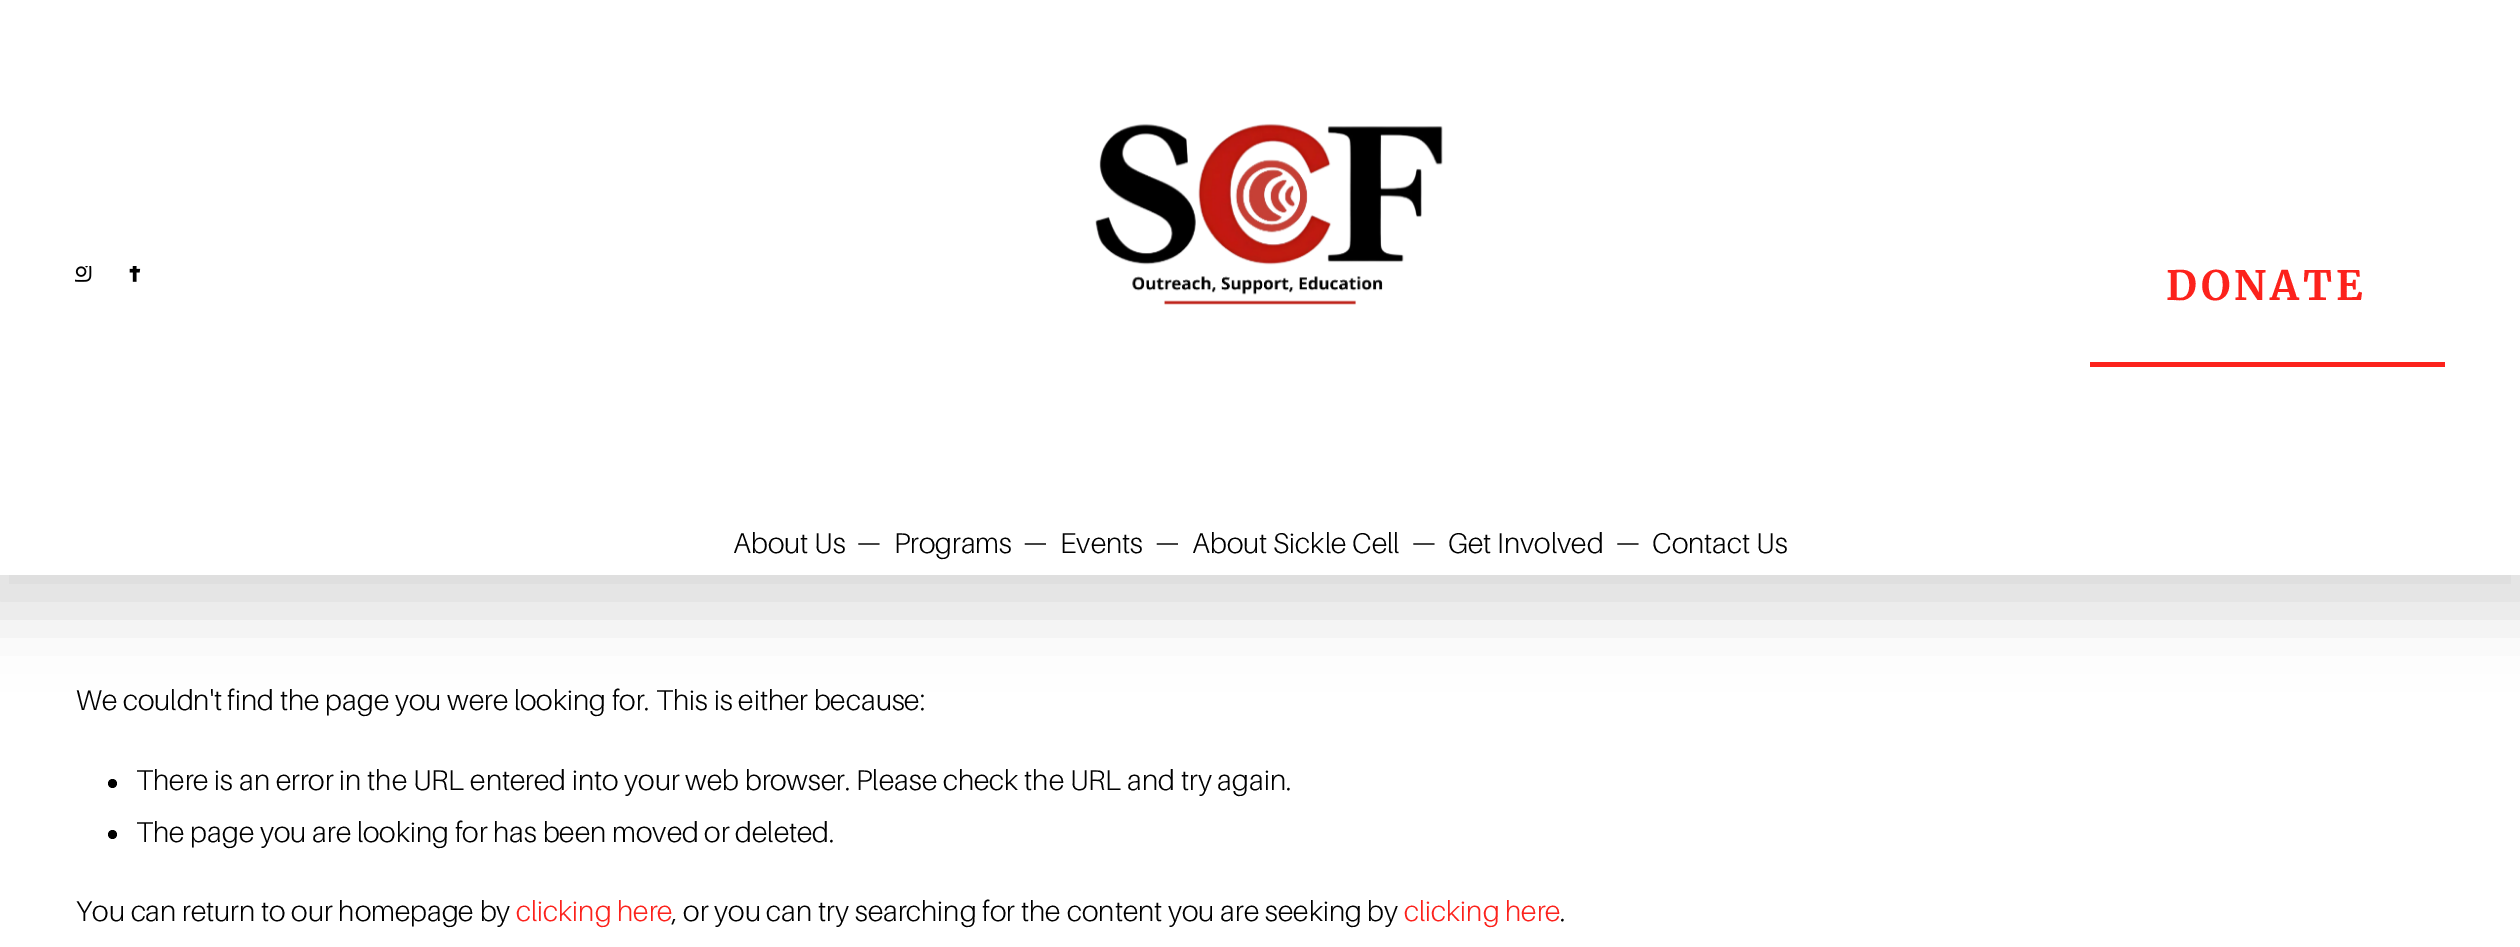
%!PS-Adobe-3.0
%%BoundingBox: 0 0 2520 947
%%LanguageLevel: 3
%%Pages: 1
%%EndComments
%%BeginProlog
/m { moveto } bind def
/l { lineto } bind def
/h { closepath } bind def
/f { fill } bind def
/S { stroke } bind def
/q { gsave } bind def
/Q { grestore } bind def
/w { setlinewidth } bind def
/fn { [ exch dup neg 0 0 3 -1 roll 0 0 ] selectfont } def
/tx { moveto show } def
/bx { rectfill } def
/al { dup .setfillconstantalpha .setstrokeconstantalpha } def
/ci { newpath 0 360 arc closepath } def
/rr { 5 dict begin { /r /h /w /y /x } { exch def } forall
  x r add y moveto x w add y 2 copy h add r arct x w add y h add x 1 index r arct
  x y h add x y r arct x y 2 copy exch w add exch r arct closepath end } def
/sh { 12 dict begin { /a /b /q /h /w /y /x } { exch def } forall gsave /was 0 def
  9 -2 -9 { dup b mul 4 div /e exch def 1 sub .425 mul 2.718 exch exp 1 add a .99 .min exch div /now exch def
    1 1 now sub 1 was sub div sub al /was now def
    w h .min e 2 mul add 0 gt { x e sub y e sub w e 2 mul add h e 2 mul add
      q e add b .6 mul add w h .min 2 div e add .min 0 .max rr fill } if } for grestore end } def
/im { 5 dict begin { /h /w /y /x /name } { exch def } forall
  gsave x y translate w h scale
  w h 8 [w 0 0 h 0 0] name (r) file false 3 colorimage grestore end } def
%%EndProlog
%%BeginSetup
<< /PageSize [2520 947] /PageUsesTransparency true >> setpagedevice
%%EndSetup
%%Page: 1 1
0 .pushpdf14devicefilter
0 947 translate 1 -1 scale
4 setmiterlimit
1 setgray
0 0 2520 947 bx
q
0 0 m 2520 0 l 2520 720 l 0 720 l h 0 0 m 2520 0 l 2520 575 l 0 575 l h eoclip newpath
0.851 setgray
-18 0 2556 611 0 36 1 sh
Q
(image0.raw) 75 266 17 16 im
(image1.raw) 129 266 12 16 im
0.988 0.133 0.11 setrgbcolor
2090 362 355 5 bx
/Merriweather-Light 40.5 fn
2166 300 m 4 0 (DONATE) ashow
(image2.raw) 1095 123 348 182 im
/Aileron-Light 28.5 fn
0 setgray
(About Us) 733 553 tx
1.3 w
2 setlinecap
869.5 544 m 879.5 544 l 859 544 l S
(Programs) 894 553 tx
1036 544 m 1046 544 l 1025.5 544 l S
(Events) 1060 553 tx
1168 544 m 1178 544 l 1157.5 544 l S
(About Sickle Cell) 1192 553 tx
1424.5 544 m 1434.5 544 l 1414 544 l S
(Get Involved) 1448 553 tx
1628.5 544 m 1638.5 544 l 1618 544 l S
(Contact Us) 1652 553 tx
(We couldn't find the page you were looking for. This is either because:) 76 710 tx
112.5 783.5 4.5 ci f
(There is an error in the URL entered into your web browser. Please check the URL and try again.) 136 790 tx
112.5 834.5 4.5 ci f
(The page you are looking for has been moved or deleted.) 136 842 tx
(You can return to our homepage by) 76 921 tx
0.988 0.133 0.11 setrgbcolor
(clicking here) 516 921 tx
0 setgray
(, or you can try searching for the) 672 921 tx
(content you are seeking by) 1067 921 tx
0.988 0.133 0.11 setrgbcolor
(clicking here) 1404 921 tx
0 setgray
(.) 1560 921 tx
.poppdf14devicefilter showpage
%%EOF
